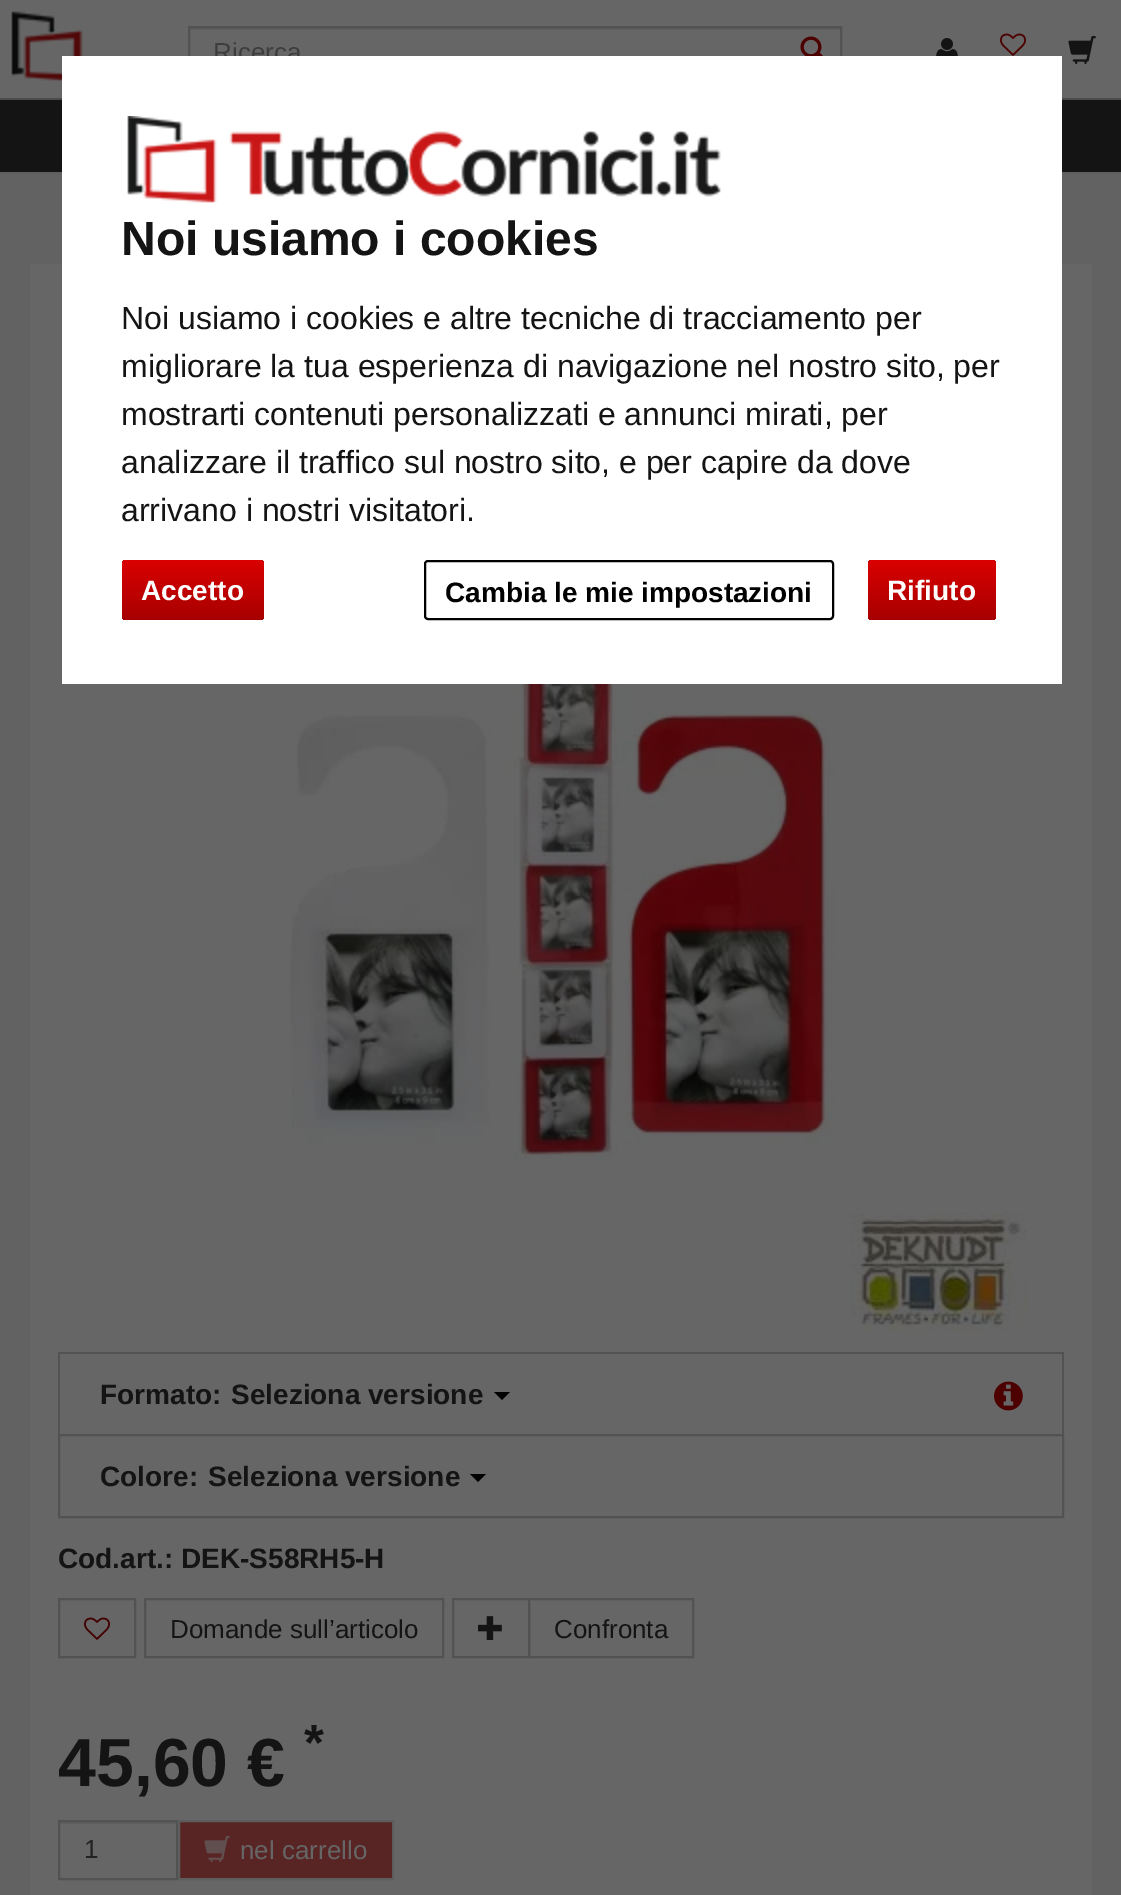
%!PS-Adobe-3.0
%%BoundingBox: 0 0 1121 1895
%%LanguageLevel: 3
%%Pages: 1
%%EndComments
%%BeginProlog
/m { moveto } bind def
/l { lineto } bind def
/h { closepath } bind def
/f { fill } bind def
/S { stroke } bind def
/q { gsave } bind def
/Q { grestore } bind def
/w { setlinewidth } bind def
/fn { [ exch dup neg 0 0 3 -1 roll 0 0 ] selectfont } def
/tx { moveto show } def
/bx { rectfill } def
/rr { 5 dict begin { /r /h /w /y /x } { exch def } forall
  x r add y moveto x w add y 2 copy h add r arct x w add y h add x 1 index r arct
  x y h add x y r arct x y 2 copy exch w add exch r arct closepath end } def
/im { 5 dict begin { /h /w /y /x /name } { exch def } forall
  gsave x y translate w h scale
  w h 8 [w 0 0 h 0 0] name (r) file false 3 colorimage grestore end } def
%%EndProlog
%%BeginSetup
<< /PageSize [1121 1895] >> setpagedevice
%%EndSetup
%%Page: 1 1
0 1895 translate 1 -1 scale
4 setmiterlimit
0.384 setgray
0 0 1121 1895 bx
0.4 setgray
0 0 1121 98 bx
0.294 setgray
0 98 1121 2 bx
(image0.raw) 11 11 72 72 im
0.369 setgray
190 28 650 2 bx
0.322 setgray
2 w
189 27 652 50 rectstroke
/LiberationSans-Regular 26 fn
0.239 setgray
(Ricerca) 213 61 tx
(image1.raw) 800 36 23 20 im
(image2.raw) 936 38 22 18 im
(image3.raw) 1000 33 26 23 im
(image4.raw) 1068 36 28 28 im
0.078 setgray
0 100 1121 72 bx
0.373 setgray
0 172 1121 2 bx
0.4 setgray
30 264 1062 1631 bx
1 setgray
62 56 1000 628 bx
(image5.raw) 127 116 594 87 im
/LiberationSans-Bold 48 fn
0.078 setgray
(Noi usiamo i cookies) 121 255 tx
/LiberationSans-Regular 32 fn
(Noi usiamo i cookies e altre tecniche di tracciamento per) 121 329 tx
(migliorare la tua esperienza di navigazione nel nostro sito, per) 121 377 tx
(mostrarti contenuti personalizzati e annunci mirati, per) 121 425 tx
(analizzare il traffico sul nostro sito, e per capire da dove) 121 473 tx
(arrivano i nostri visitatori.) 121 521 tx
q 122 560 142 60 4 rr clip newpath
<< /ShadingType 2 /ColorSpace /DeviceRGB /Coords [193 560 193 620] /Extend [true true] /Function << /FunctionType 2 /Domain [0 1] /C0 [0.855 0 0] /C1 [0.655 0 0] /N 1 >> >> shfill Q
/LiberationSans-Bold 28 fn
1 setgray
(Accetto) 141 600 tx
0 setgray
425 561 408 58 3 rr S
(Cambia le mie impostazioni) 445 602 tx
q 868 560 128 60 4 rr clip newpath
<< /ShadingType 2 /ColorSpace /DeviceRGB /Coords [932 560 932 620] /Extend [true true] /Function << /FunctionType 2 /Domain [0 1] /C0 [0.855 0 0] /C1 [0.655 0 0] /N 1 >> >> shfill Q
1 setgray
(Rifiuto) 887 600 tx
(image6.raw) 290 684 544 477 im
(image7.raw) 850 1212 177 120 im
0.322 setgray
58 1352 1006 2 bx
1062 1352 2 82 bx
58 1352 2 82 bx
0.078 setgray
(Formato:) 100 1404 tx
(Seleziona versione) 231 1404 tx
0 setgray
494 1392 m 510 1392 l 502 1400 l h f
(image8.raw) 994 1381 29 30 im
0.322 setgray
59 1435 1004 82 rectstroke
0.078 setgray
(Colore:) 100 1486 tx
(Seleziona versione) 208 1486 tx
0 setgray
470 1474 m 486 1474 l 478 1482 l h f
0.078 setgray
(Cod.art.: DEK-S58RH5-H) 58 1568 tx
0.322 setgray
59 1599 76 58 rectstroke
(image9.raw) 84 1617 26 23 im
145 1599 298 58 rectstroke
/LiberationSans-Regular 26 fn
0.078 setgray
(Domande sull’articolo) 170 1638 tx
0.322 setgray
453 1599 76 58 rectstroke
(image10.raw) 478 1616 24 24 im
529 1599 164 58 rectstroke
0.078 setgray
(Confronta) 554 1638 tx
/LiberationSans-Bold 51 fn
(*) 304 1760 tx
/LiberationSans-Bold 68 fn
(45,60 €) 58 1786 tx
0.369 setgray
60 1822 116 2 bx
0.322 setgray
59 1821 118 58 rectstroke
/LiberationSans-Regular 26 fn
0.133 setgray
(1) 84 1858 tx
0.349 0.141 0.141 setrgbcolor
179 1821 m 393 1821 l 393 1879 l 179 1879 l h q f Q
0.365 setgray
S
(image11.raw) 204 1836 26 26 im
0.4 setgray
(nel carrello) 240 1859 tx
showpage
%%EOF
